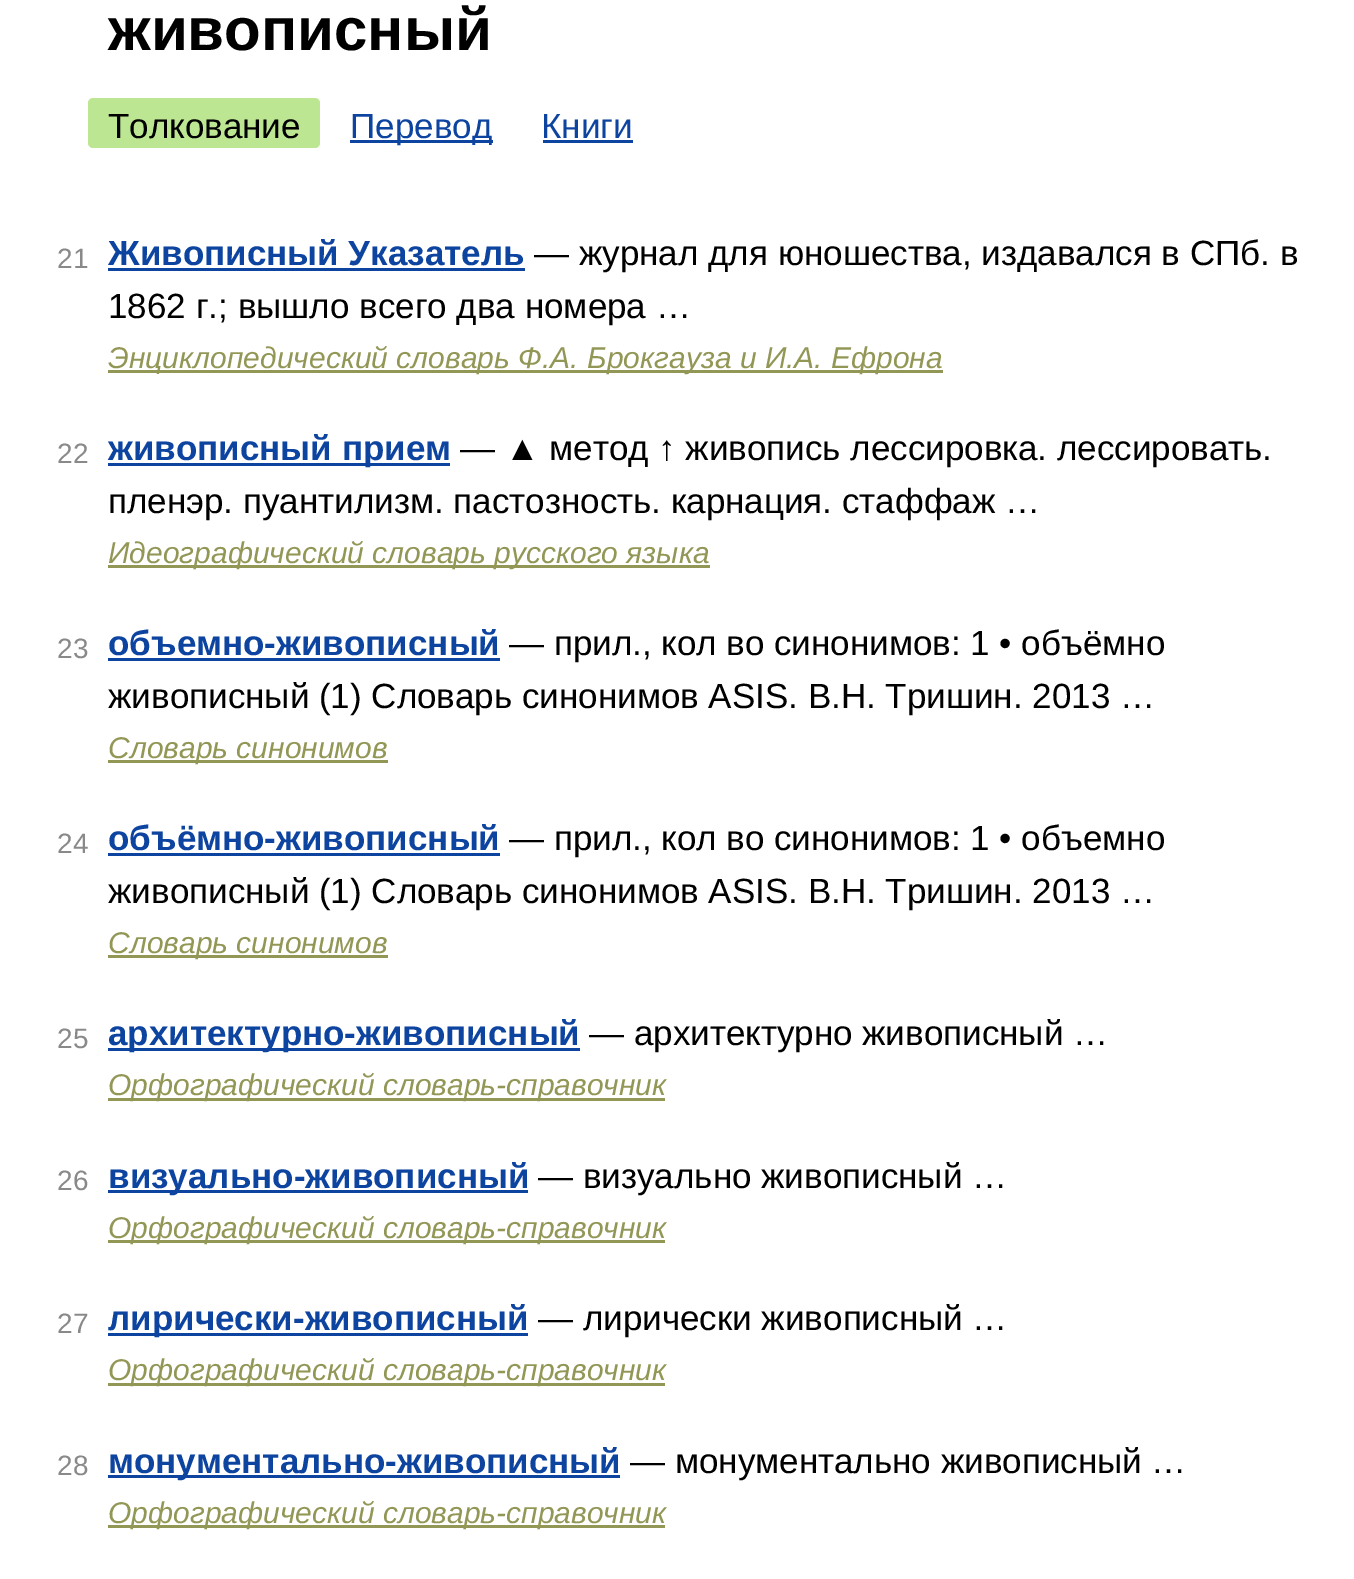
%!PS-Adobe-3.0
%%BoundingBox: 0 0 1354 1579
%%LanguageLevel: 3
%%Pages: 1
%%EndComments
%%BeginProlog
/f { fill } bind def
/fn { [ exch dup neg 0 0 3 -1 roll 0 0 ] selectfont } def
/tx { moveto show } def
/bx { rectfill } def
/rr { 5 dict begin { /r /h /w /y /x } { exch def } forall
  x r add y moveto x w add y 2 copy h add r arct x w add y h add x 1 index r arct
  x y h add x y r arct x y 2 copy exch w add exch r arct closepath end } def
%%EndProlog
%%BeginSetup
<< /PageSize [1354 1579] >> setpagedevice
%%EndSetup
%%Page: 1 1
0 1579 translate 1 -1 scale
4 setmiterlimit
1 setgray
0 0 1354 1579 bx
/LiberationSans-Bold 60 fn
0 setgray
(живописный) 108 50 tx
0.741 0.902 0.576 setrgbcolor
88 98 232 50 5 rr f
/LiberationSans-Regular 35 fn
0 setgray
(Толкование) 108 138 tx
0.051 0.267 0.627 setrgbcolor
350 140 143 3 bx
(Перевод) 350 138 tx
(Книги) 541 138 tx
543 140 90 3 bx
/LiberationSans-Regular 28 fn
0.537 setgray
(21) 57 268 tx
/LiberationSans-Bold 35 fn
0.051 0.267 0.627 setrgbcolor
(Живописный Указатель) 108 265 tx
108 268 417 3 bx
/LiberationSans-Regular 35 fn
0 setgray
(— журнал для юношества, издавался в СПб. в) 534 265 tx
(1862 г.; вышло всего два номера …) 108 318 tx
0.576 0.592 0.337 setrgbcolor
108 370 835 3 bx
/LiberationSans-Italic 30 fn
(Энциклопедический словарь Ф.А. Брокгауза и И.А. Ефрона) 108 368 tx
/LiberationSans-Regular 28 fn
0.537 setgray
(22) 57 463 tx
0.051 0.267 0.627 setrgbcolor
108 463 342 3 bx
/LiberationSans-Bold 35 fn
(живописный прием) 108 460 tx
/LiberationSans-Regular 35 fn
0 setgray
(— ▲ метод ↑ живопись лессировка. лессировать.) 460 460 tx
(пленэр. пуантилизм. пастозность. карнация. стаффаж …) 108 513 tx
0.576 0.592 0.337 setrgbcolor
108 565 602 3 bx
/LiberationSans-Italic 30 fn
(Идеографический словарь русского языка) 108 563 tx
/LiberationSans-Regular 28 fn
0.537 setgray
(23) 57 658 tx
/LiberationSans-Bold 35 fn
0.051 0.267 0.627 setrgbcolor
(объемно-живописный) 108 655 tx
108 658 392 3 bx
/LiberationSans-Regular 35 fn
0 setgray
(— прил., кол во синонимов: 1 • объёмно) 509 655 tx
(живописный \(1\) Словарь синонимов ASIS. В.Н. Тришин. 2013 …) 108 708 tx
0.576 0.592 0.337 setrgbcolor
108 760 280 3 bx
/LiberationSans-Italic 30 fn
(Словарь синонимов) 108 758 tx
/LiberationSans-Regular 28 fn
0.537 setgray
(24) 57 853 tx
/LiberationSans-Bold 35 fn
0.051 0.267 0.627 setrgbcolor
(объёмно-живописный) 108 850 tx
108 853 392 3 bx
/LiberationSans-Regular 35 fn
0 setgray
(— прил., кол во синонимов: 1 • объемно) 509 850 tx
(живописный \(1\) Словарь синонимов ASIS. В.Н. Тришин. 2013 …) 108 903 tx
0.576 0.592 0.337 setrgbcolor
108 955 280 3 bx
/LiberationSans-Italic 30 fn
(Словарь синонимов) 108 953 tx
/LiberationSans-Regular 28 fn
0.537 setgray
(25) 57 1048 tx
0.051 0.267 0.627 setrgbcolor
108 1048 472 3 bx
/LiberationSans-Bold 35 fn
(архитектурно-живописный) 108 1045 tx
/LiberationSans-Regular 35 fn
0 setgray
(— архитектурно живописный …) 589 1045 tx
0.576 0.592 0.337 setrgbcolor
108 1098 557 3 bx
/LiberationSans-Italic 30 fn
(Орфографический словарь-справочник) 108 1095 tx
/LiberationSans-Regular 28 fn
0.537 setgray
(26) 57 1190 tx
0.051 0.267 0.627 setrgbcolor
108 1190 420 3 bx
/LiberationSans-Bold 35 fn
(визуально-живописный) 108 1188 tx
/LiberationSans-Regular 35 fn
0 setgray
(— визуально живописный …) 538 1188 tx
0.576 0.592 0.337 setrgbcolor
108 1240 557 3 bx
/LiberationSans-Italic 30 fn
(Орфографический словарь-справочник) 108 1238 tx
/LiberationSans-Regular 28 fn
0.537 setgray
(27) 57 1333 tx
0.051 0.267 0.627 setrgbcolor
108 1333 420 3 bx
/LiberationSans-Bold 35 fn
(лирически-живописный) 108 1330 tx
/LiberationSans-Regular 35 fn
0 setgray
(— лирически живописный …) 538 1330 tx
0.576 0.592 0.337 setrgbcolor
108 1383 557 3 bx
/LiberationSans-Italic 30 fn
(Орфографический словарь-справочник) 108 1380 tx
/LiberationSans-Regular 28 fn
0.537 setgray
(28) 57 1475 tx
0.051 0.267 0.627 setrgbcolor
108 1475 512 3 bx
/LiberationSans-Bold 35 fn
(монументально-живописный) 108 1473 tx
/LiberationSans-Regular 35 fn
0 setgray
(— монументально живописный …) 630 1473 tx
0.576 0.592 0.337 setrgbcolor
108 1525 557 3 bx
/LiberationSans-Italic 30 fn
(Орфографический словарь-справочник) 108 1523 tx
showpage
%%EOF
